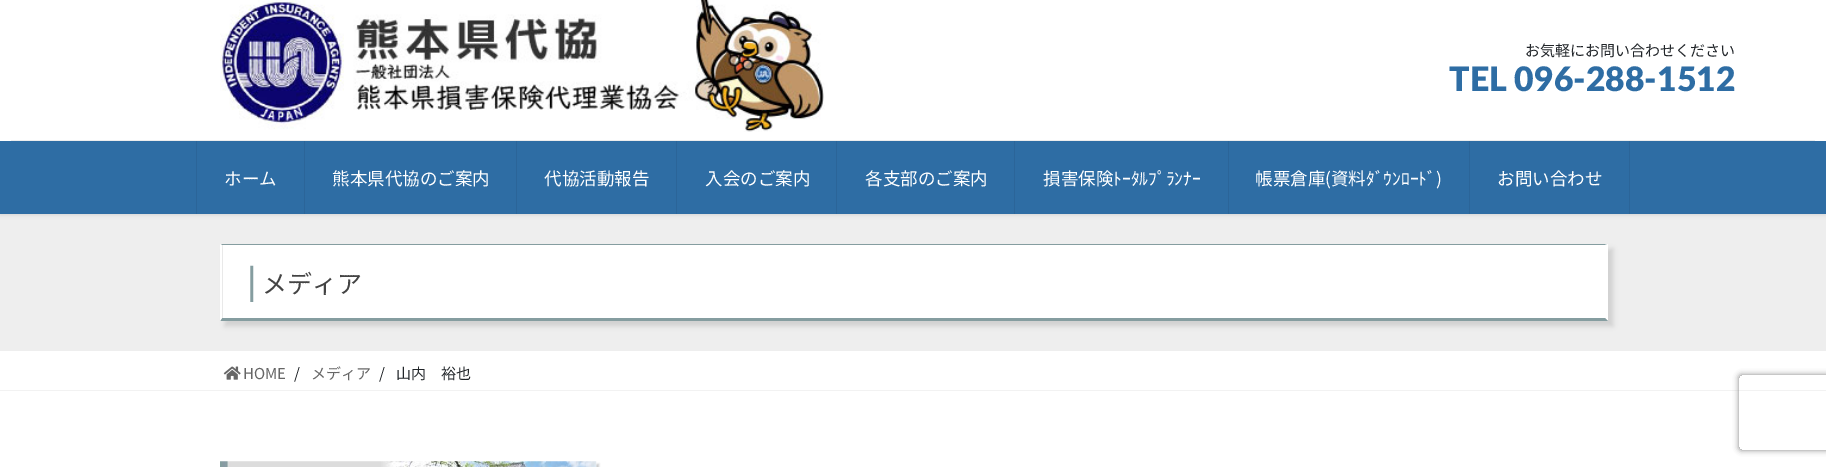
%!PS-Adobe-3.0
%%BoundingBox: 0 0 1826 467
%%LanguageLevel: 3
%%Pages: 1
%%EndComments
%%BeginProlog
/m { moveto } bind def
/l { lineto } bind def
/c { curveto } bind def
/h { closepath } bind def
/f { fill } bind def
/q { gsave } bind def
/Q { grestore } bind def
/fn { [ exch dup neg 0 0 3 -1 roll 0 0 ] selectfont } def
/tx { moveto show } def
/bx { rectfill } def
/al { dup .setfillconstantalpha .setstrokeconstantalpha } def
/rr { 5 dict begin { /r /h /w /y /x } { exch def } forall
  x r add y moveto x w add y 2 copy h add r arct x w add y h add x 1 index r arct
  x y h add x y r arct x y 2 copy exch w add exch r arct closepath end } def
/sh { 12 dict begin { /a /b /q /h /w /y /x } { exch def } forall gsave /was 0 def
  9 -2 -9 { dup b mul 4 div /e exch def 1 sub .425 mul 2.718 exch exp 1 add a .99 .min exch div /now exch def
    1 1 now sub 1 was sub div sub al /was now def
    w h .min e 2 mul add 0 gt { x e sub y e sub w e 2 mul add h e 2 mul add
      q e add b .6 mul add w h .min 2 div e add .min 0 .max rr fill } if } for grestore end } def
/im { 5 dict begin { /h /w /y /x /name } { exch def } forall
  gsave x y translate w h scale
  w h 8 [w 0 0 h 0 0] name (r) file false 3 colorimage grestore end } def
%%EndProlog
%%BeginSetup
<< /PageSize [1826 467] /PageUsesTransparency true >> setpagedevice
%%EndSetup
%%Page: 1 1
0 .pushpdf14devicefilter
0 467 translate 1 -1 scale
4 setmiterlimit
1 setgray
0 0 1826 467 bx
0.933 setgray
0 214 1826 137 bx
0 setgray
0 1 1826 214 0 2 0.1 sh
1 setgray
0 0 1826 141 bx
(image0.raw) 220 0 605 132 im
/NotoSansJP-Regular 15 fn
0.129 0.145 0.161 setrgbcolor
(お気軽にお問い合わせください) 1525 56 tx
/Lato-Black 33.75 fn
0.18 0.427 0.643 setrgbcolor
(TEL 096-288-1512) 1449 91 tx
0.929 setgray
11 140 1804 1 bx
0.18 0.427 0.643 setrgbcolor
0 141 1826 73 bx
0.169 0.396 0.6 setrgbcolor
304 141 1 73 bx
196 141 1 73 bx
/NotoSansJP-Regular 17.5 fn
1 setgray
(ホーム) 224 185 tx
0.169 0.396 0.6 setrgbcolor
516 141 1 73 bx
1 setgray
(熊本県代協のご案内) 332 185 tx
0.169 0.396 0.6 setrgbcolor
676 141 1 73 bx
1 setgray
(代協活動報告) 544 185 tx
0.169 0.396 0.6 setrgbcolor
836 141 1 73 bx
1 setgray
(入会のご案内) 705 185 tx
0.169 0.396 0.6 setrgbcolor
1014 141 1 73 bx
1 setgray
(各支部のご案内) 865 185 tx
0.169 0.396 0.6 setrgbcolor
1228 141 1 73 bx
1 setgray
(損害保険ﾄｰﾀﾙﾌﾟﾗﾝﾅｰ) 1043 185 tx
0.169 0.396 0.6 setrgbcolor
1469 141 1 73 bx
1 setgray
(帳票倉庫\(資料ﾀﾞｳﾝﾛｰﾄﾞ\)) 1255 185 tx
0.169 0.396 0.6 setrgbcolor
1629 141 1 73 bx
1 setgray
(お問い合わせ) 1497 185 tx
0.647 setgray
225 249 1388 77 0 2.5 0.4 sh
1 setgray
223 245 1382 73 bx
0.522 0.616 0.627 setrgbcolor
220 244 m 1608 244 l 1605 245 l 222 245 l h f
1 setgray
1608 244 m 1608 321 l 1605 318 l 1605 245 l h f
0.522 0.616 0.627 setrgbcolor
1608 321 m 220 321 l 222 318 l 1605 318 l h f
1 setgray
220 321 m 220 244 l 222 245 l 222 318 l h f
/NotoSansJP-Bold 32 fn
0.522 0.616 0.627 setrgbcolor
(|) 247 293 tx
/NotoSansJP-Regular 25 fn
0.267 setgray
(メディア) 262 293 tx
0.949 setgray
0 390 1826 1 bx
(image1.raw) 223 366 18 14 im
/NotoSansJP-Regular 15 fn
0.4 setgray
(HOME) 243 379 tx
0.129 0.145 0.161 setrgbcolor
(/) 294 379 tx
0.4 setgray
(メディア) 311 379 tx
0.129 0.145 0.161 setrgbcolor
(/) 379 379 tx
(山内　裕也) 396 379 tx
q
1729 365 m 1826 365 l 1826 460 l 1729 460 l h 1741.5 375 m 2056.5 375 l 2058 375 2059 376 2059 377.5 c 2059 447.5 l 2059 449 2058 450 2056.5 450 c 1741.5 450 l 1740 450 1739 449 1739 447.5 c 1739 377.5 l 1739 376 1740 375 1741.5 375 c h eoclip newpath
0.502 setgray
1739 375 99 75 2.5 3 1 sh
Q
0.647 setgray
223 464 376 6 0 1 0.6 sh
(image2.raw) 220 461 377 6 im
.poppdf14devicefilter showpage
%%EOF
